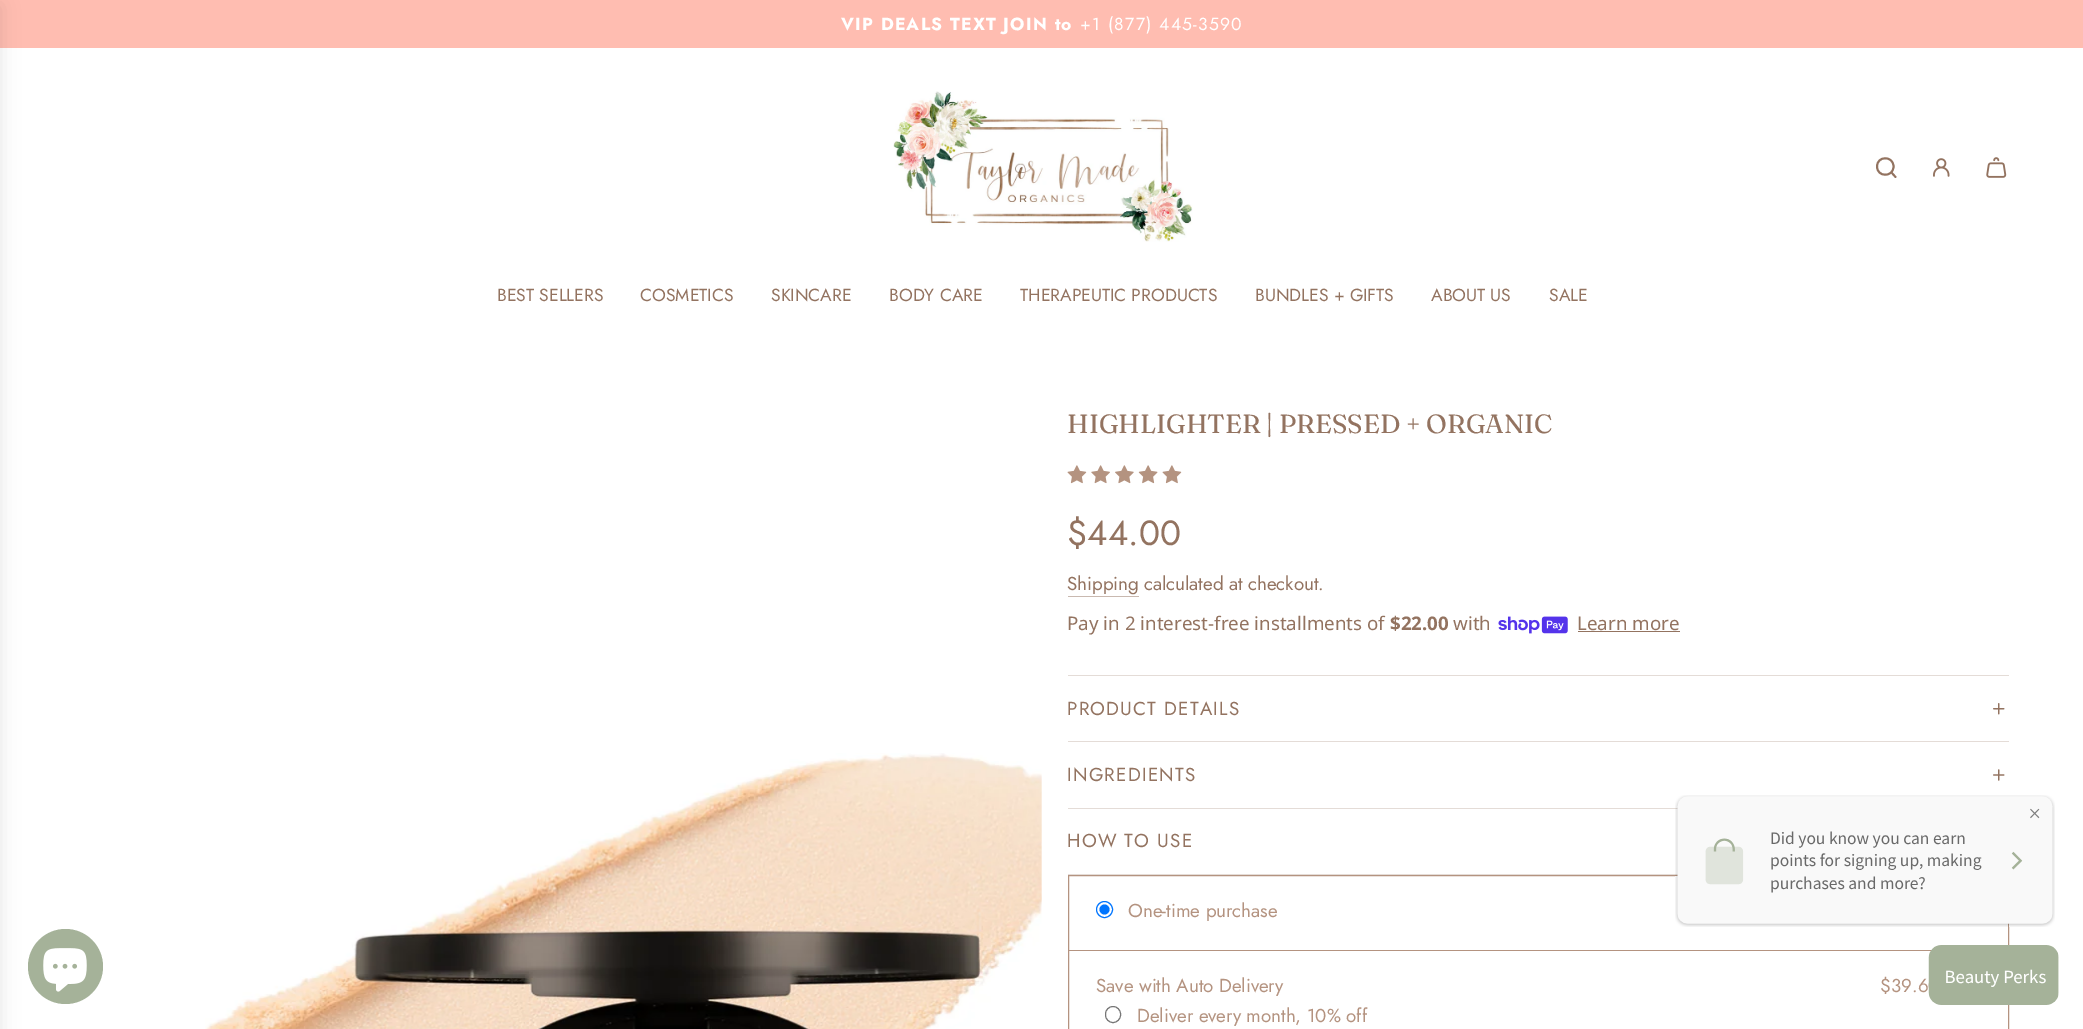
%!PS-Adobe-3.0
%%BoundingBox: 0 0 2083 1029
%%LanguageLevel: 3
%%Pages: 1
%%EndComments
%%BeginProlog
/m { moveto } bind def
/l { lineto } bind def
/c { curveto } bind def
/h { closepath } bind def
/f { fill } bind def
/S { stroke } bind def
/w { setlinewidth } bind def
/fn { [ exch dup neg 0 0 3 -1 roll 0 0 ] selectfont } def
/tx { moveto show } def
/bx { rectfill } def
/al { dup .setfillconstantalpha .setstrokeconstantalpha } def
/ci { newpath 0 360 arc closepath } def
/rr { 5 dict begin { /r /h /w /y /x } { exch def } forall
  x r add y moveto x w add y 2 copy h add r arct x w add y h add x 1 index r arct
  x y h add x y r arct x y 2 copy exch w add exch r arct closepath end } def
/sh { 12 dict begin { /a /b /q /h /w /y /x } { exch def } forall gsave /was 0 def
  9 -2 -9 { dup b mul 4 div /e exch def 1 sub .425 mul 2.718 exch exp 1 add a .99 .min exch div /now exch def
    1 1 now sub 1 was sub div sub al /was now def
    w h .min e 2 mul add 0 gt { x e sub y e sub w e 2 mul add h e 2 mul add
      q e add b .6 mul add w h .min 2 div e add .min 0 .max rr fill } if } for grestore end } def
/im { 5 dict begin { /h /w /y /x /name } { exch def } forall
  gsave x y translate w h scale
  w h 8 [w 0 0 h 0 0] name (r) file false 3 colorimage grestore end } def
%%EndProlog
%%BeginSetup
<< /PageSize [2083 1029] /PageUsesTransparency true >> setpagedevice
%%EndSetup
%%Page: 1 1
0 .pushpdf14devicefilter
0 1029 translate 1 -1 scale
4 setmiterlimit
1 setgray
0 0 2083 1029 bx
1 0.741 0.694 setrgbcolor
0 0 2083 48 bx
/Jost-Bold 17.5 fn
1 setgray
841 30 m 1.25 0 (VIP DEALS TEXT JOIN to) ashow
/Jost-Regular 17.5 fn
1080 30 m 1.25 0 (+1 \(877\) 445-3590) ashow
0 setgray
-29 6 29 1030 0 9.5 0.1 sh
(image0.raw) 893 91 300 151 im
0.576 0.451 0.376 setrgbcolor
1.9 w
1 setlinecap
1 setlinejoin
1891.5 172.5 m 1895.5 177 l 1877 166.5 m 1877 177.5 1893.5 177.5 1893.5 166.5 c 1893.5 155.5 1877 155.5 1877 166.5 c h S
(image1.raw) 1933 158 17 19 im
(image2.raw) 1986 157 21 21 im
(BEST SELLERS) 497 301 tx
(COSMETICS) 640 301 tx
(SKINCARE) 771 301 tx
(BODY CARE) 889 301 tx
(THERAPEUTIC PRODUCTS) 1020 301 tx
(BUNDLES + GIFTS) 1255 301 tx
(ABOUT US) 1431 301 tx
(SALE) 1549 301 tx
(image3.raw) 205 753 837 276 im
/Fraunces-Regular 26.25 fn
(HIGHLIGHTER | PRESSED + ORGANIC) 1067 433 tx
(image4.raw) 1067 465 20 19 im
(image5.raw) 1091 465 19 19 im
(image6.raw) 1115 465 19 19 im
(image7.raw) 1138 465 20 19 im
(image4.raw) 1162 465 20 19 im
/Jost-Regular 35 fn
($44.00) 1067 545 tx
/Jost-Regular 18.75 fn
(Shipping) 1067 590 tx
0.788 0.725 0.69 setrgbcolor
1068 596 71 1 bx
0.576 0.451 0.376 setrgbcolor
(calculated at checkout.) 1144 590 tx
/NotoSans-Regular 18.75 fn
(Pay in 2 interest-free installments of) 1067 630 tx
/NotoSans-Bold 18.75 fn
($22.00) 1390 630 tx
/NotoSans-Regular 18.75 fn
(with) 1453 630 tx
(image8.raw) 1498 616 70 18 im
(Learn more) 1577 630 tx
1578 631 102 1 bx
0.894 0.863 0.843 setrgbcolor
1068 675 941 1 bx
1068 741 941 1 bx
/Jost-Regular 18.75 fn
0.576 0.451 0.376 setrgbcolor
1067 715 m 1.25 0 (PRODUCT DETAILS) ashow
(image9.raw) 1993 703 12 12 im
0.894 0.863 0.843 setrgbcolor
1068 808 610 1 bx
0.576 0.451 0.376 setrgbcolor
1067 781 m 1.25 0 (INGREDIENTS) ashow
(image10.raw) 1993 769 12 12 im
0.894 0.863 0.843 setrgbcolor
1068 874 610 1 bx
0.576 0.451 0.376 setrgbcolor
1067 847 m 1.25 0 (HOW TO USE) ashow
0.706 0.576 0.502 setrgbcolor
1 w
0 setlinecap
0 setlinejoin
1068.5 875.5 940 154 rectstroke
1069 950 863 1 bx
0 0.459 1 setrgbcolor
1104.5 909.5 8 ci S
1104.5 909.5 5 ci f
0.706 0.576 0.502 setrgbcolor
(One-time purchase) 1128 917 tx
(Save with Auto Delivery) 1096 992 tx
($39.6) 1880 992 tx
0.463 setgray
1105.5 1006.5 15 16 7.5 rr S
0.706 0.576 0.502 setrgbcolor
(Deliver every month, 10% off) 1137 1022 tx
(image11.raw) 1675 795 380 132 im
0.647 0.698 0.6 setrgbcolor
65.5 966.5 37.5 ci f
(image12.raw) 43 948 44 44 im
(image13.raw) 1928 945 131 60 im
.poppdf14devicefilter showpage
%%EOF
